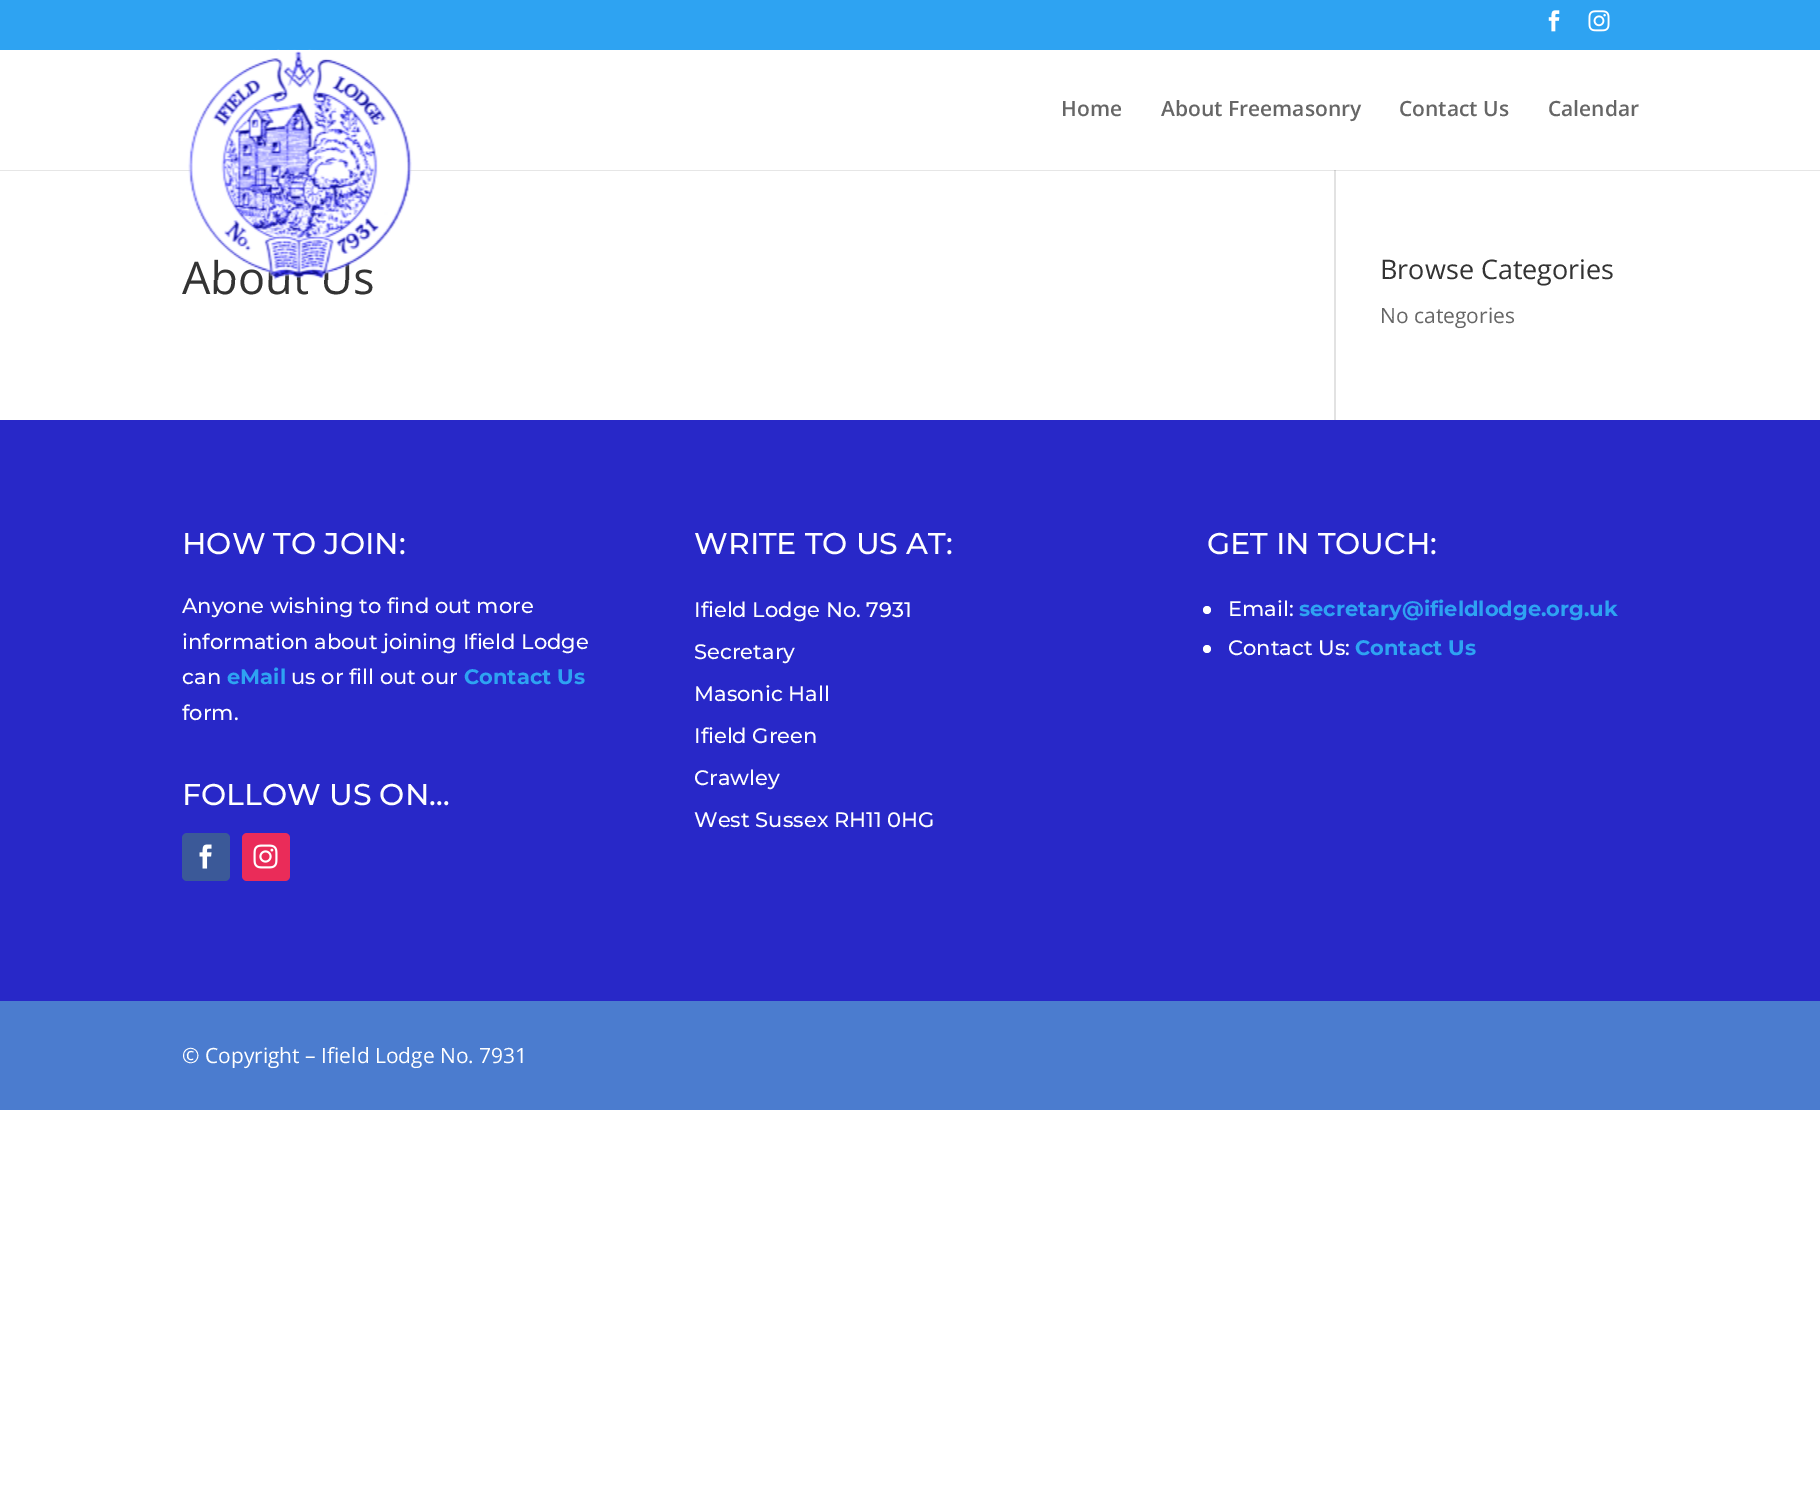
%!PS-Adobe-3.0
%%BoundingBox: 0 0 1820 1499
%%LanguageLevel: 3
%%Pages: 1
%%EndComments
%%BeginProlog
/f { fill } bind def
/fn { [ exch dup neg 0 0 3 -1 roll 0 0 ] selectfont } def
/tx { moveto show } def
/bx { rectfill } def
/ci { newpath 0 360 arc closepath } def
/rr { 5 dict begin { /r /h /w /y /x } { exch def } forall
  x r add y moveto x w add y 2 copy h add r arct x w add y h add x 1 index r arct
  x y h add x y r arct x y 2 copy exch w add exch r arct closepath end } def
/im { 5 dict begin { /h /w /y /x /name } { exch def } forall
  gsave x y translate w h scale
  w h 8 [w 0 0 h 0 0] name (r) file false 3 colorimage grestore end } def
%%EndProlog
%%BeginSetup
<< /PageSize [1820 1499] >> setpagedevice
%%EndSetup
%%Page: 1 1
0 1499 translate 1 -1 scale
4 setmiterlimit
1 setgray
0 0 1820 1499 bx
0.902 setgray
0 170 1820 1 bx
0.18 0.639 0.949 setrgbcolor
0 0 1820 50 bx
(image0.raw) 1548 10 12 22 im
(image1.raw) 1588 10 22 22 im
0.886 setgray
1334 168 2 252 bx
1 setgray
1334 168 2 2 bx
/OpenSans-Regular 45 fn
0.2 setgray
(About Us) 182 294 tx
(image2.raw) 188 49 224 231 im
/OpenSans-SemiBold 21 fn
0.4 setgray
(Home) 1061 116 tx
(About Freemasonry) 1161 116 tx
(Contact Us) 1399 116 tx
(Calendar) 1548 116 tx
0.796 setgray
1334 170 2 1 bx
/OpenSans-Regular 27 fn
0.2 setgray
(Browse Categories) 1380 279 tx
/OpenSans-Regular 21 fn
0.4 setgray
(No categories) 1380 323 tx
0.157 0.157 0.784 setrgbcolor
0 420 1820 581 bx
/Montserrat-Medium 30 fn
1 setgray
(HOW TO JOIN:) 182 554 tx
/Montserrat-Medium 21 fn
(Anyone wishing to find out more) 182 613 tx
(information about joining Ifield Lodge) 182 649 tx
(can) 182 684 tx
/Montserrat-Bold 21 fn
0.18 0.639 0.949 setrgbcolor
(eMail) 227 684 tx
/Montserrat-Medium 21 fn
1 setgray
(us or fill out our) 291 684 tx
/Montserrat-Bold 21 fn
0.18 0.639 0.949 setrgbcolor
(Contact Us) 464 684 tx
/Montserrat-Medium 21 fn
1 setgray
(form.) 182 720 tx
/Montserrat-Medium 30 fn
(FOLLOW US ON…) 182 805 tx
0.231 0.349 0.596 setrgbcolor
182 833 48 48 5 rr f
(image3.raw) 199 844 13 25 im
0.918 0.173 0.349 setrgbcolor
242 833 48 48 5 rr f
(image4.raw) 253 844 25 25 im
1 setgray
(WRITE TO US AT:) 694 554 tx
/Montserrat-Medium 21 fn
(Ifield Lodge No. 7931) 694 617 tx
(Secretary) 694 659 tx
(Masonic Hall) 694 701 tx
(Ifield Green) 694 743 tx
(Crawley) 694 785 tx
(West Sussex RH11 0HG) 694 827 tx
/Montserrat-Medium 30 fn
(GET IN TOUCH:) 1207 554 tx
1207 610 4 ci f
/Montserrat-Medium 21 fn
(Email:) 1228 616 tx
/Montserrat-Bold 21 fn
0.18 0.639 0.949 setrgbcolor
(secretary@ifieldlodge.org.uk) 1299 616 tx
1 setgray
1207 649 4 ci f
/Montserrat-Medium 21 fn
(Contact Us:) 1228 655 tx
/Montserrat-Bold 21 fn
0.18 0.639 0.949 setrgbcolor
(Contact Us) 1355 655 tx
0.294 0.486 0.812 setrgbcolor
0 1001 1820 109 bx
/OpenSans-Regular 21 fn
1 setgray
(© Copyright – Ifield Lodge No. 7931) 182 1063 tx
showpage
%%EOF
